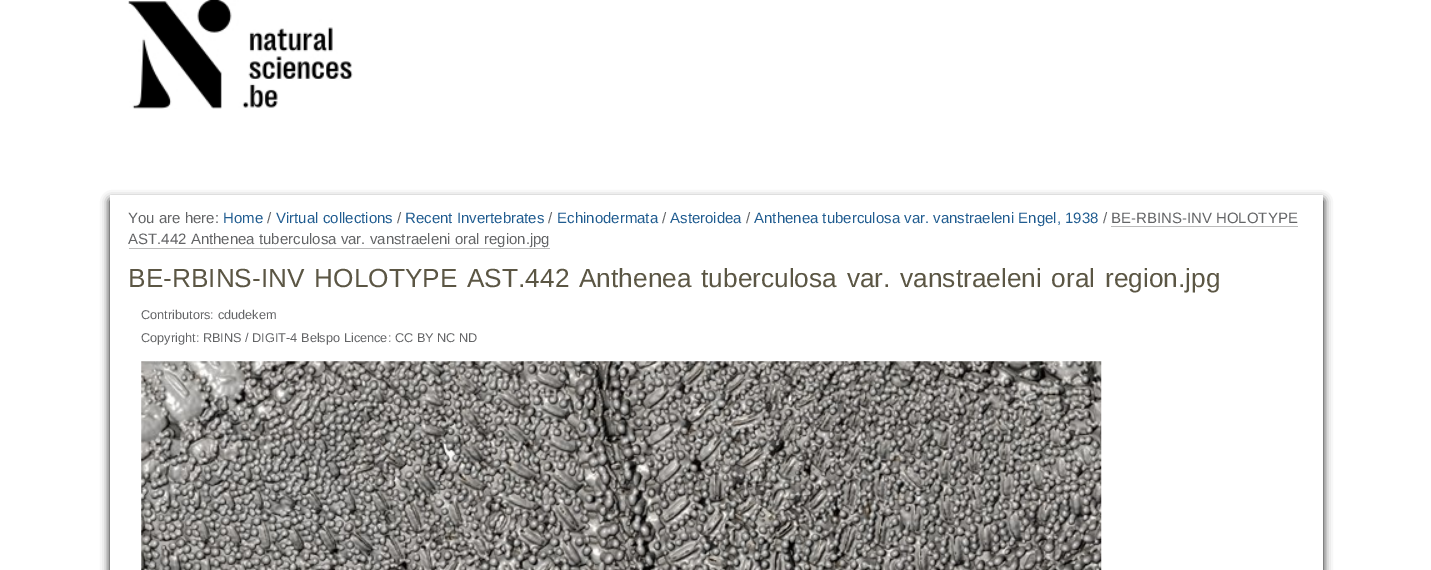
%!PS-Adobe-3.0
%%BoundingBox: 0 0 1431 570
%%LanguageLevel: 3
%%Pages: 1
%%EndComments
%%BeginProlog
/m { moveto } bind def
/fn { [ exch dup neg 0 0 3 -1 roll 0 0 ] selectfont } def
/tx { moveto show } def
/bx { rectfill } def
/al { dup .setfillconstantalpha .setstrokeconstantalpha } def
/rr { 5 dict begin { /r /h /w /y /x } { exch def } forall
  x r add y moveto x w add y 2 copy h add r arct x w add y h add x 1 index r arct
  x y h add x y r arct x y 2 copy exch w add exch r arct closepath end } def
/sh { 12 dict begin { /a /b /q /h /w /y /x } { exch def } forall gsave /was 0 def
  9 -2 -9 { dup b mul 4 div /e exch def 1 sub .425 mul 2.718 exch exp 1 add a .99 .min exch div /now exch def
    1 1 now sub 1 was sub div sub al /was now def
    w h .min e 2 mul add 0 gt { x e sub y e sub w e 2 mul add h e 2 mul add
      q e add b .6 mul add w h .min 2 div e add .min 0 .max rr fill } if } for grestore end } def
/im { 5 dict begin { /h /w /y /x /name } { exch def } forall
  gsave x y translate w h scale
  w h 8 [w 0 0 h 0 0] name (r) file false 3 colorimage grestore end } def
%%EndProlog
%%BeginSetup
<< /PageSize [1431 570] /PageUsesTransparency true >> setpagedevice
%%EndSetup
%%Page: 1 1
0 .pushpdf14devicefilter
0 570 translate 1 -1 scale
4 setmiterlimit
1 setgray
0 0 1431 570 bx
(image0.raw) 128 0 225 109 im
0 setgray
110 200 1213 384 0 4.5 1 sh
1 setgray
110 195 1213 375 bx
/LiberationSans-Regular 15 fn
0.388 0.392 0.4 setrgbcolor
(You are here:) 128 223 tx
0.125 0.361 0.565 setrgbcolor
(Home) 223 223 tx
0.388 0.392 0.4 setrgbcolor
(/) 267 223 tx
0.125 0.361 0.565 setrgbcolor
(Virtual collections) 276 223 tx
0.388 0.392 0.4 setrgbcolor
(/) 397 223 tx
0.125 0.361 0.565 setrgbcolor
(Recent Invertebrates) 405 223 tx
0.388 0.392 0.4 setrgbcolor
(/) 548 223 tx
0.125 0.361 0.565 setrgbcolor
(Echinodermata) 557 223 tx
0.388 0.392 0.4 setrgbcolor
(/) 662 223 tx
0.125 0.361 0.565 setrgbcolor
(Asteroidea) 670 223 tx
0.388 0.392 0.4 setrgbcolor
(/) 746 223 tx
0.125 0.361 0.565 setrgbcolor
(Anthenea tuberculosa var. vanstraeleni Engel, 1938) 754 223 tx
0.388 0.392 0.4 setrgbcolor
(/) 1103 223 tx
(BE-RBINS-INV HOLOTYPE) 1111 223 tx
0.733 setgray
1111 226 187 1 bx
0.388 0.392 0.4 setrgbcolor
(AST.442 Anthenea tuberculosa var. vanstraeleni oral region.jpg) 128 244 tx
0.733 setgray
129 248 421 1 bx
/LiberationSans-Regular 26.25 fn
0.357 0.337 0.267 setrgbcolor
128 287 m 2.5 0 32 (BE-RBINS-INV HOLOTYPE AST.442 Anthenea tuberculosa var. vanstraeleni oral region.jpg) widthshow
/LiberationSans-Regular 12.75 fn
0.388 0.392 0.4 setrgbcolor
(Contributors: cdudekem) 141 319 tx
(Copyright: RBINS / DIGIT-4 Belspo Licence: CC BY NC ND) 141 342 tx
(image1.raw) 141 361 961 209 im
.poppdf14devicefilter showpage
%%EOF
